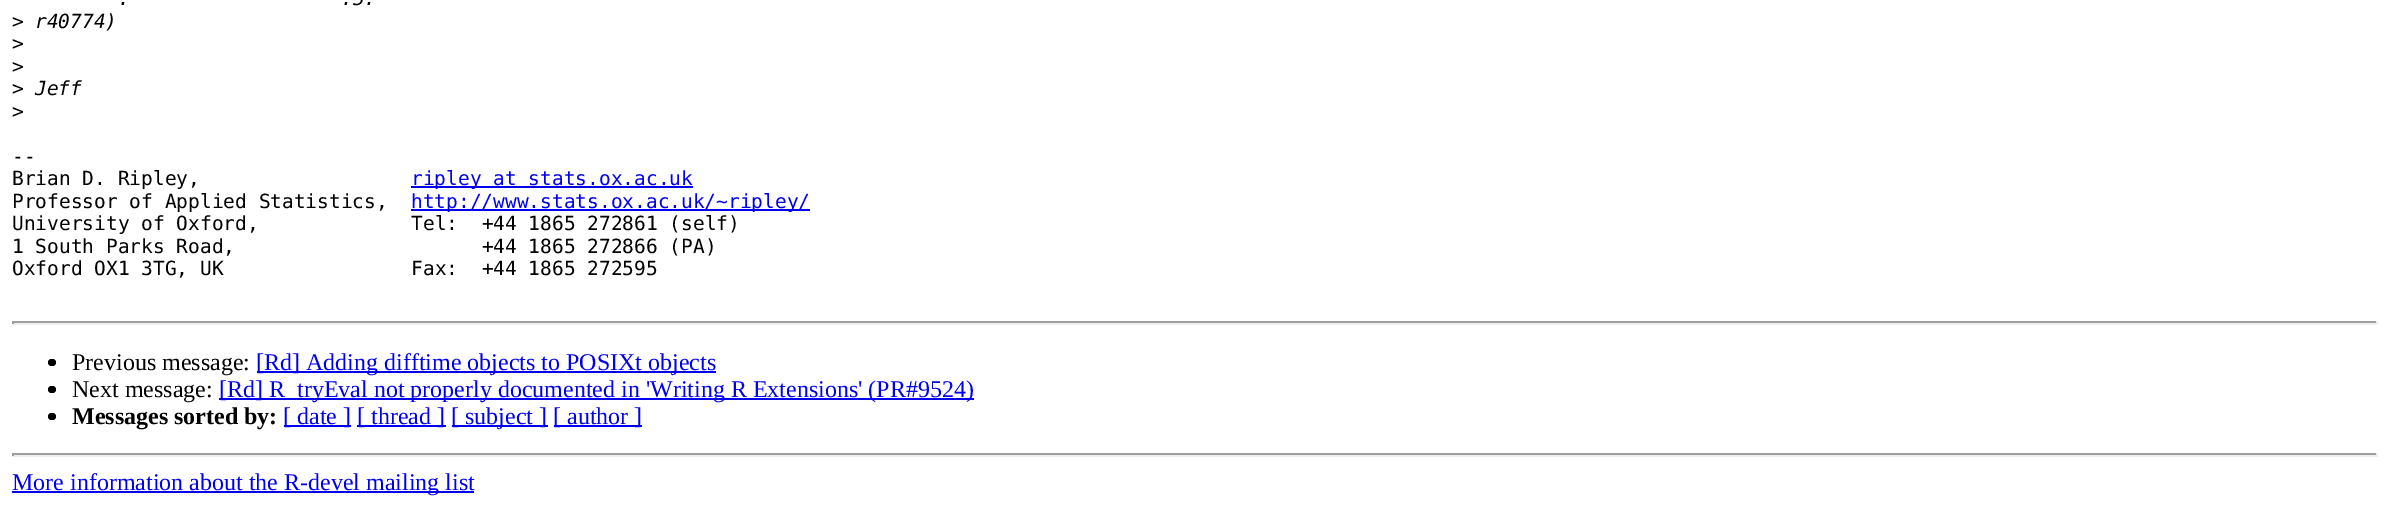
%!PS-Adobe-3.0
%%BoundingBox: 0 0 2389 506
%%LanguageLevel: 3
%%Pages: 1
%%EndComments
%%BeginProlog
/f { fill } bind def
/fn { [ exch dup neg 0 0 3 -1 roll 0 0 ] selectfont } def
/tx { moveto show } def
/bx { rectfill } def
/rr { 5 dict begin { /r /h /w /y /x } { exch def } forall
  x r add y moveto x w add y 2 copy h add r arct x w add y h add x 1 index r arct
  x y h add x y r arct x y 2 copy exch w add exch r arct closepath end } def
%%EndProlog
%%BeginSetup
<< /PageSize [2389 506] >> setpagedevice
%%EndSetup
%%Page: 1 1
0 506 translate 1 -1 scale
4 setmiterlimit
1 setgray
0 0 2389 506 bx
/DejaVuSansMono-Italic 19.5 fn
0 setgray
(.) 118 5 tx
(.5.) 341 5 tx
/DejaVuSansMono-Regular 19.5 fn
(>) 12 28 tx
/DejaVuSansMono-Italic 19.5 fn
(r40774\)) 35 28 tx
/DejaVuSansMono-Regular 19.5 fn
(>) 12 50 tx
(>) 12 73 tx
(>) 12 95 tx
/DejaVuSansMono-Italic 19.5 fn
(Jeff) 35 95 tx
/DejaVuSansMono-Regular 19.5 fn
(>) 12 118 tx
(--) 12 163 tx
(Brian D. Ripley,) 12 185 tx
0 0 0.933 setrgbcolor
411 186 282 2 bx
(ripley at stats.ox.ac.uk) 411 185 tx
0 setgray
(Professor of Applied Statistics,) 12 208 tx
0 0 0.933 setrgbcolor
411 209 399 2 bx
(http://www.stats.ox.ac.uk/~ripley/) 411 208 tx
0 setgray
(University of Oxford,             Tel:  +44 1865 272861 \(self\)) 12 230 tx
(1 South Parks Road,                     +44 1865 272866 \(PA\)) 12 253 tx
(Oxford OX1 3TG, UK                Fax:  +44 1865 272595) 12 275 tx
0.624 setgray
12 321 2366 2 bx
0.933 setgray
2376 321 2 3 bx
12 323 2366 2 bx
0.624 setgray
12 321 2 3 bx
0 setgray
48 359 8 7 3.5 rr f
/LiberationSerif-Regular 24 fn
(Previous message:) 72 370 tx
0 0 0.933 setrgbcolor
257 371 459 2 bx
([Rd] Adding difftime objects to POSIXt objects) 256 370 tx
0 setgray
48 386 8 7 3.5 rr f
(Next message:) 72 397 tx
0 0 0.933 setrgbcolor
219 398 755 2 bx
([Rd] R_tryEval not properly documented in 'Writing R Extensions' \(PR#9524\)) 219 397 tx
0 setgray
48 413 8 7 3.5 rr f
/LiberationSerif-Bold 24 fn
(Messages sorted by:) 72 424 tx
0 0 0.933 setrgbcolor
284 425 67 2 bx
/LiberationSerif-Regular 24 fn
([ date ]) 283 424 tx
357 425 89 2 bx
([ thread ]) 357 424 tx
452 425 96 2 bx
([ subject ]) 451 424 tx
554 425 88 2 bx
([ author ]) 553 424 tx
0.624 setgray
12 453 2366 2 bx
0.933 setgray
2376 453 2 3 bx
12 455 2366 2 bx
0.624 setgray
12 453 2 3 bx
0 0 0.933 setrgbcolor
12 491 462 2 bx
(More information about the R-devel mailing list) 12 490 tx
showpage
%%EOF
